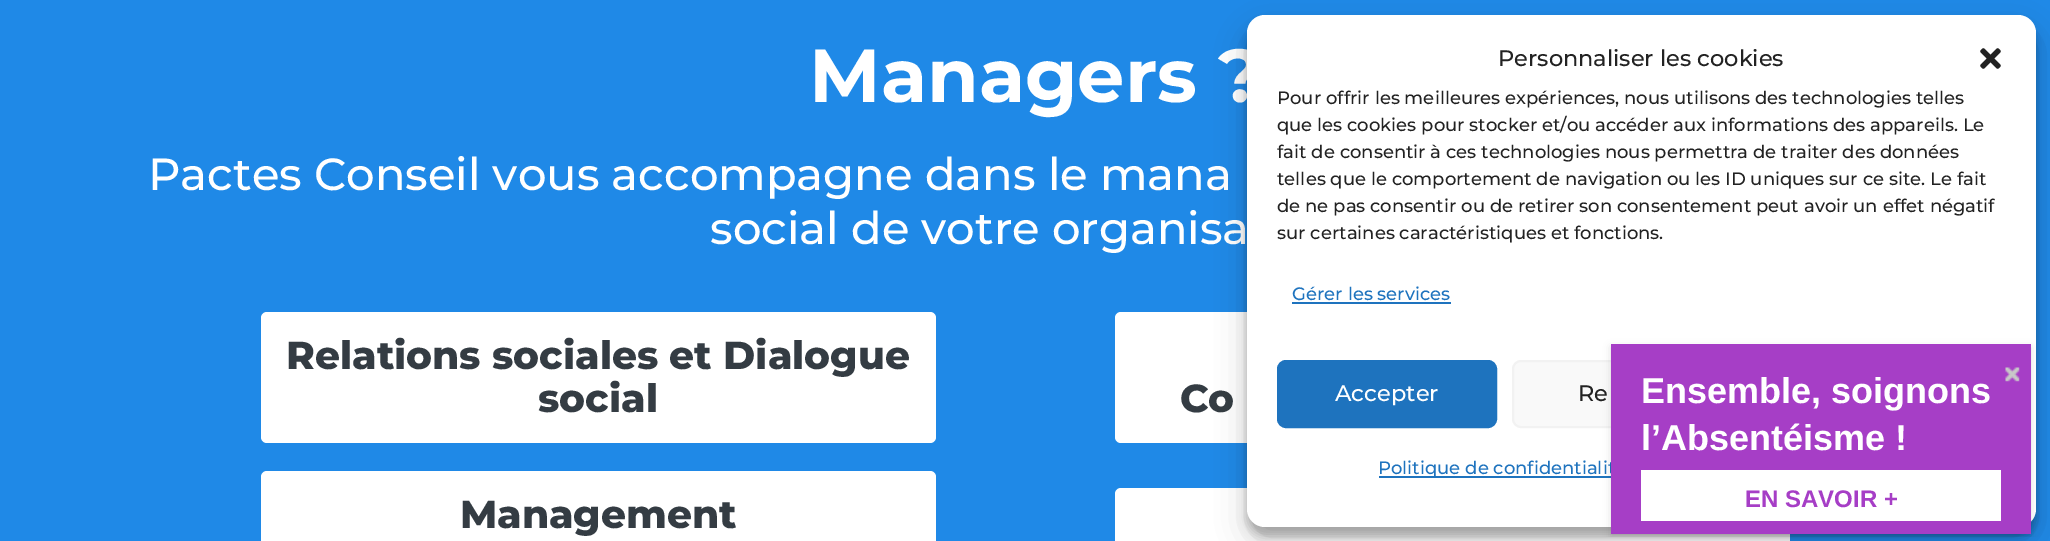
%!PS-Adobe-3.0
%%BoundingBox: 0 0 2050 541
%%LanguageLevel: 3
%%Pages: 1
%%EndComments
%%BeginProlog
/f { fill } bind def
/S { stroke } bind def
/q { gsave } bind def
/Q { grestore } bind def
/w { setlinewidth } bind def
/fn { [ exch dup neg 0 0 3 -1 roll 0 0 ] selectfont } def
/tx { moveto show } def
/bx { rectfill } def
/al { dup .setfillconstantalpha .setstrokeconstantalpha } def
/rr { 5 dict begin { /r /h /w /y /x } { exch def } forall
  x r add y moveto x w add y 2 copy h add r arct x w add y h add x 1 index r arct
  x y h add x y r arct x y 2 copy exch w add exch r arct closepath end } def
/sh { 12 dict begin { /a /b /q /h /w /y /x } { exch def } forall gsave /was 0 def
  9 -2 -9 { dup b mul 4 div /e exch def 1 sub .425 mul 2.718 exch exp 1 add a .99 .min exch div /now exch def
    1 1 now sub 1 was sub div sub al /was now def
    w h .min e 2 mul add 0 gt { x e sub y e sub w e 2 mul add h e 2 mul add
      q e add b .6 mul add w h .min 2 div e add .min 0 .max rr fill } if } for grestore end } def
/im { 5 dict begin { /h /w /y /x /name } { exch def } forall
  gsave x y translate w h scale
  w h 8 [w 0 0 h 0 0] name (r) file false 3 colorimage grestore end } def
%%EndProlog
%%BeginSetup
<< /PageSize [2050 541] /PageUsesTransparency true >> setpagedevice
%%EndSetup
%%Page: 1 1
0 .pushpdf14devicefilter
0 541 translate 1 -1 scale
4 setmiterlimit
0.122 0.537 0.906 setrgbcolor
0 0 2050 541 bx
/Montserrat-Thin 75 fn
1 setgray
(Managers ?) 809 102 tx
/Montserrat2-Thin 45 fn
(Pactes Conseil vous accompagne dans le mana) 148 190 tx
(social de votre organisa) 710 244 tx
261 312 675 131 6 rr f
/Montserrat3-Thin 39 fn
0.204 0.235 0.263 setrgbcolor
(Relations sociales et Dialogue) 286 369 tx
(social) 538 412 tx
1 setgray
261 471 675 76 6 rr f
0.204 0.235 0.263 setrgbcolor
(Management) 460 528 tx
1 setgray
1115 312 675 131 6 rr f
0.204 0.235 0.263 setrgbcolor
(Co) 1180 412 tx
1 setgray
1115 488 675 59 6 rr f
0 setgray
1247 24 789 512 18 4.5 0.23 sh
1247 30 789 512 18 15 0.19 sh
1 setgray
1247 15 789 512 18 rr f
/Montserrat2-Thin 22.5 fn
0.133 setgray
(Personnaliser les cookies) 1498 66 tx
(image0.raw) 1980 48 21 21 im
/Montserrat2-Thin 18 fn
(Pour offrir les meilleures expériences, nous utilisons des technologies telles) 1277 104 tx
(que les cookies pour stocker et/ou accéder aux informations des appareils. Le) 1277 131 tx
(fait de consentir à ces technologies nous permettra de traiter des données) 1277 158 tx
(telles que le comportement de navigation ou les ID uniques sur ce site. Le fait) 1277 185 tx
(de ne pas consentir ou de retirer son consentement peut avoir un effet négatif) 1277 212 tx
(sur certaines caractéristiques et fonctions.) 1277 239 tx
0.118 0.451 0.745 setrgbcolor
(Gérer les services) 1292 300 tx
1292 302 159 2 bx
1278 361 218 66 8 rr q f Q
2 w
S
/Montserrat2-Thin 22.5 fn
1 setgray
(Accepter) 1335 401 tx
0.976 setgray
1513 361 219 66 8 rr q f Q
0.949 setgray
S
0.133 setgray
(Re) 1578 401 tx
0.118 0.451 0.745 setrgbcolor
1379 476 232 2 bx
/Montserrat2-Thin 18 fn
(Politique de confidentialit) 1378 474 tx
q
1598 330 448 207 rectclip
0 setgray
1611 347 420 190 0 4 0.13 sh
Q
0.651 0.243 0.776 setrgbcolor
1611 344 420 190 bx
(image1.raw) 2005 367 15 15 im
/LiberationSans-Bold 36 fn
1 setgray
(Ensemble, soignons) 1641 403 tx
(l’Absentéisme !) 1641 450 tx
1641 470 360 51 bx
/LiberationSans-Bold 24 fn
0.651 0.243 0.776 setrgbcolor
(EN SAVOIR +) 1745 507 tx
.poppdf14devicefilter showpage
%%EOF
